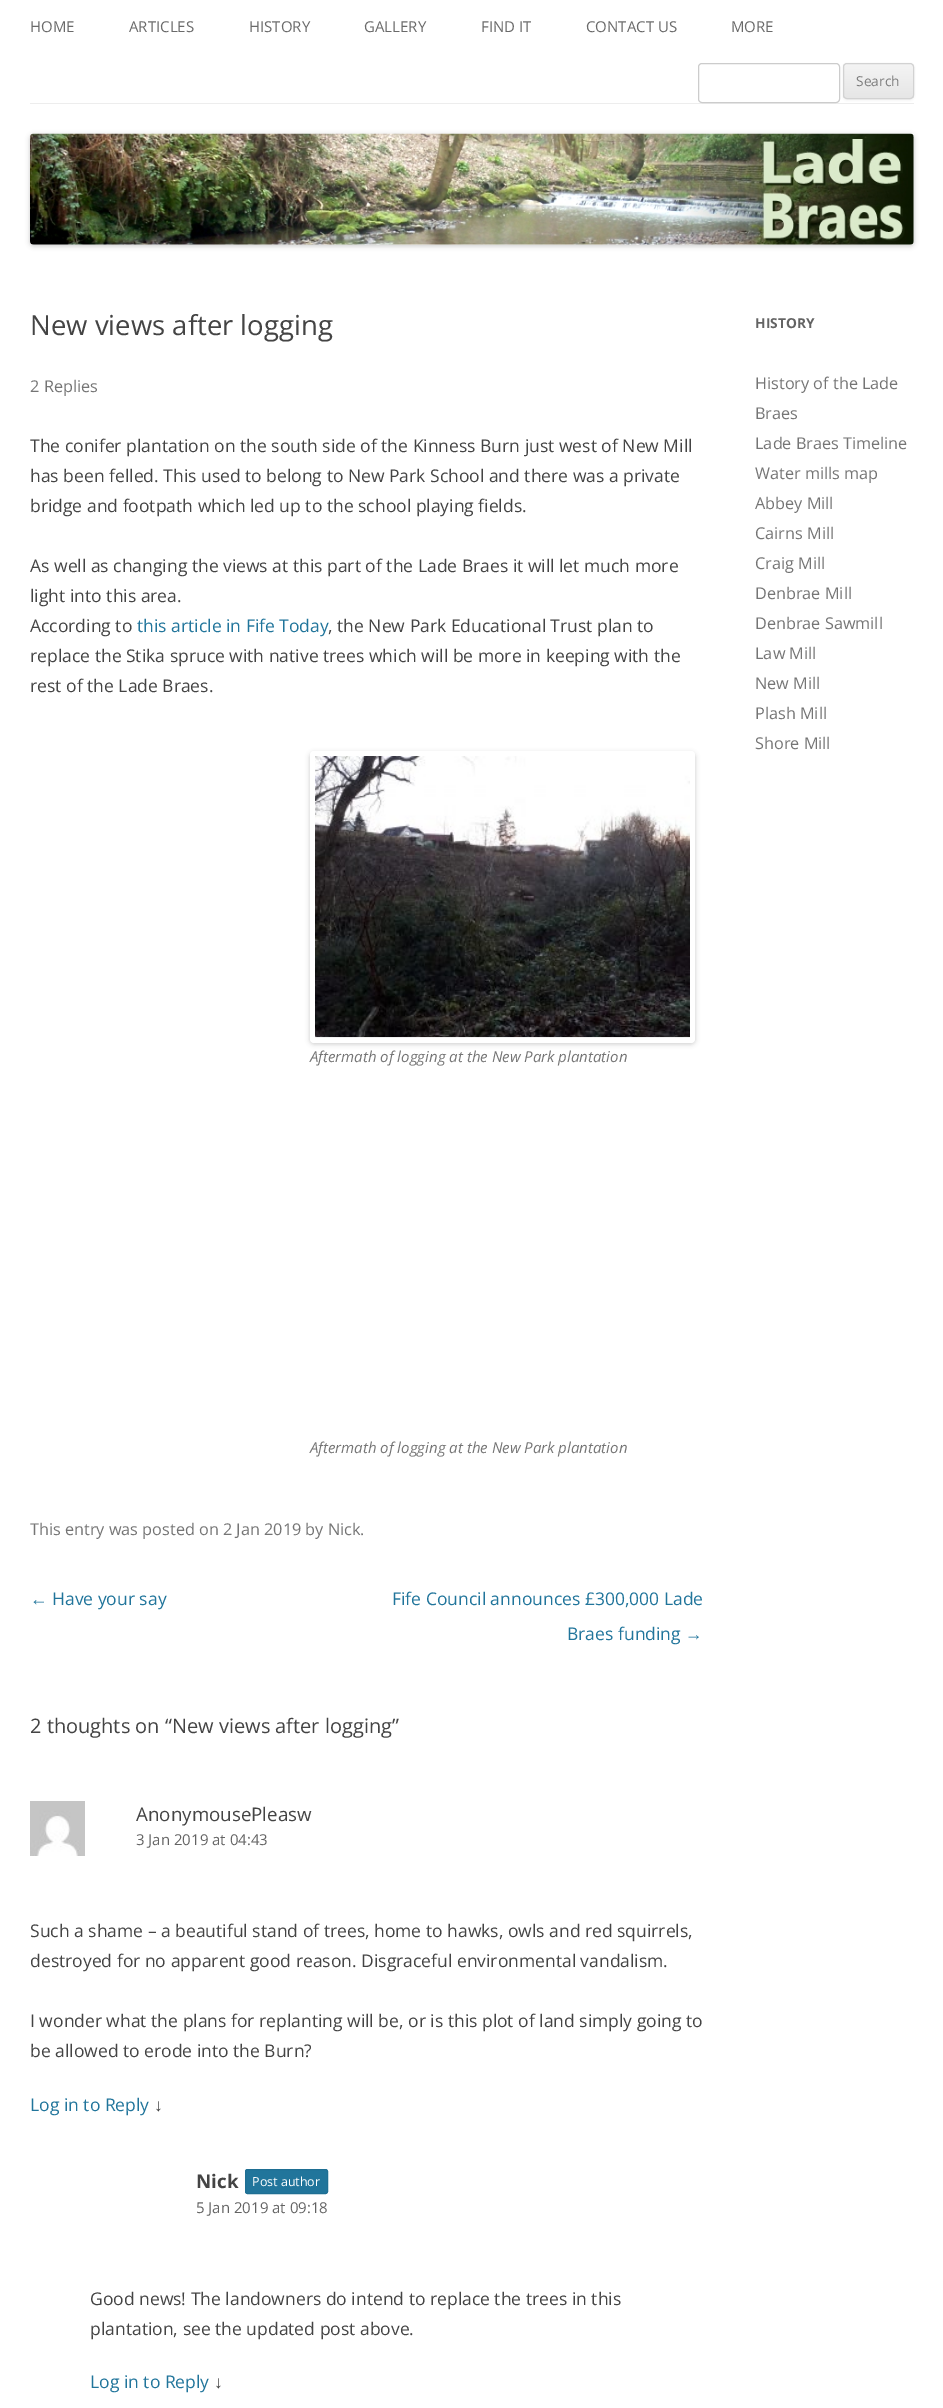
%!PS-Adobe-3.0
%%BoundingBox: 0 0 943 2408
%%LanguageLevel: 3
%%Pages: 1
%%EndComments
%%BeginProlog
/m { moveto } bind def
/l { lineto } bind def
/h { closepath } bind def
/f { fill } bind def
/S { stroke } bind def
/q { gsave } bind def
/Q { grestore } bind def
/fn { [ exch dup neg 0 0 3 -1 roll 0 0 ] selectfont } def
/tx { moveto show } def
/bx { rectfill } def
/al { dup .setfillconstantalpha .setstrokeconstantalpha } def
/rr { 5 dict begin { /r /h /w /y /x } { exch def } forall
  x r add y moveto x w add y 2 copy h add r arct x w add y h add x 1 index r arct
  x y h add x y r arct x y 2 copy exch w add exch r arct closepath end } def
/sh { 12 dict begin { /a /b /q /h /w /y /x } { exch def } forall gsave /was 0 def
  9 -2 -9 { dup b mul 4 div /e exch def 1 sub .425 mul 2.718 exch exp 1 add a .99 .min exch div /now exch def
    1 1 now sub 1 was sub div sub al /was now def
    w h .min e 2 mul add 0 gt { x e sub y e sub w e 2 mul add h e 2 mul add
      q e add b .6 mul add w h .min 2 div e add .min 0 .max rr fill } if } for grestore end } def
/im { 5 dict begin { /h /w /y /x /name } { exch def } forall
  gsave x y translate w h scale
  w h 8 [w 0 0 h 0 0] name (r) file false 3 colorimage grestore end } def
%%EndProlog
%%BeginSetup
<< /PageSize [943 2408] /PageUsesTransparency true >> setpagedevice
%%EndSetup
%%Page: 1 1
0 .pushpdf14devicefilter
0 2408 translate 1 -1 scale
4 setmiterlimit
1 setgray
0 0 943 2408 bx
0.929 setgray
30 103 884 1 bx
/OpenSans-Regular 15 fn
0.416 setgray
(HOME) 30 32 tx
(ARTICLES) 129 32 tx
(HISTORY) 249 32 tx
(GALLERY) 364 32 tx
(FIND IT) 481 32 tx
(CONTACT US) 586 32 tx
(MORE) 731 32 tx
0.8 setgray
698.5 63.5 141 39 3.5 rr S
0.251 setgray
843 64 71 36 4 1 0.1 sh
q
843 63 71 36 4 rr clip newpath
q 843 64 m 914 64 l 914 98 l 843 98 l h clip newpath
<< /ShadingType 2 /ColorSpace /DeviceRGB /Coords [878 64 878 98] /Extend [true true] /Function << /FunctionType 2 /Domain [0 1] /C0 [0.957 0.957 0.957] /C1 [0.902 0.902 0.902] /N 1 >> >> shfill Q
Q
0.824 setgray
843.5 63.5 70 35 3.5 rr S
/OpenSans-Regular 13.75 fn
0.486 setgray
(Search) 856 86 tx
0 setgray
30 135 884 111 4 2.5 0.2 sh
(image0.raw) 30 133 884 112 im
/OpenSans-Regular 27.5 fn
0.267 setgray
(New views after logging) 30 335 tx
/OpenSans-Regular 16.25 fn
0.459 setgray
(2 Replies) 30 392 tx
/OpenSans-Regular 17.5 fn
0.267 setgray
(The conifer plantation on the south side of the Kinness Burn just west of New Mill) 30 452 tx
(has been felled. This used to belong to New Park School and there was a private) 30 482 tx
(bridge and footpath which led up to the school playing fields.) 30 512 tx
(As well as changing the views at this part of the Lade Braes it will let much more) 30 572 tx
(light into this area.) 30 602 tx
(According to) 30 632 tx
0.129 0.459 0.608 setrgbcolor
(this article in Fife Today) 137 632 tx
0.267 setgray
(, the New Park Educational Trust plan to) 328 632 tx
(replace the Stika spruce with native trees which will be more in keeping with the) 30 662 tx
(rest of the Lade Braes.) 30 692 tx
0 setgray
310 753 385 291 4 2.5 0.2 sh
1 setgray
310 751 385 292 4 rr f
(image1.raw) 315 756 375 282 im
/OpenSans-Italic 15 fn
0.459 setgray
(Aftermath of logging at the New Park plantation) 310 1062 tx
(Aftermath of logging at the New Park plantation) 310 1453 tx
/OpenSans-Regular 16.25 fn
(This entry was posted on 2 Jan 2019 by Nick.) 30 1535 tx
/LiberationSans-Regular 17.5 fn
0.129 0.459 0.608 setrgbcolor
(←) 30 1605 tx
/OpenSans-Regular 17.5 fn
(Have your say) 52 1605 tx
(Fife Council announces £300,000 Lade) 392 1605 tx
(Braes funding) 567 1640 tx
/LiberationSans-Regular 17.5 fn
(→) 685 1640 tx
/OpenSans-Regular 20 fn
0.267 setgray
(2 thoughts on “New views after logging”) 30 1733 tx
(image2.raw) 30 1801 55 55 im
/OpenSans-Regular 18.75 fn
(AnonymousePleasw) 136 1821 tx
/OpenSans-Regular 15 fn
0.388 setgray
(3 Jan 2019 at 04:43) 136 1845 tx
/OpenSans-Regular 17.5 fn
0.267 setgray
(Such a shame – a beautiful stand of trees, home to hawks, owls and red squirrels,) 30 1937 tx
(destroyed for no apparent good reason. Disgraceful environmental vandalism.) 30 1967 tx
(I wonder what the plans for replanting will be, or is this plot of land simply going to) 30 2027 tx
(be allowed to erode into the Burn?) 30 2057 tx
0.129 0.459 0.608 setrgbcolor
(Log in to Reply) 30 2111 tx
/LiberationSans-Regular 17.5 fn
0.267 setgray
(↓) 154 2111 tx
/OpenSans-Bold 18.75 fn
(Nick) 196 2188 tx
0.129 0.459 0.608 setrgbcolor
245.5 2169.5 82 24 2 rr q f Q
0.122 0.435 0.576 setrgbcolor
S
/OpenSans-Regular 12.5 fn
1 setgray
(Post author) 252 2186 tx
/OpenSans-Regular 15 fn
0.388 setgray
(5 Jan 2019 at 09:18) 196 2213 tx
/OpenSans-Regular 17.5 fn
0.267 setgray
(Good news! The landowners do intend to replace the trees in this) 90 2305 tx
(plantation, see the updated post above.) 90 2335 tx
0.129 0.459 0.608 setrgbcolor
(Log in to Reply) 90 2388 tx
/LiberationSans-Regular 17.5 fn
0.267 setgray
(↓) 214 2388 tx
/OpenSans-Bold 13.75 fn
0.388 setgray
(HISTORY) 755 328 tx
/OpenSans-Regular 16.25 fn
0.459 setgray
(History of the Lade) 755 389 tx
(Braes) 755 419 tx
(Lade Braes Timeline) 755 449 tx
(Water mills map) 755 479 tx
(Abbey Mill) 755 509 tx
(Cairns Mill) 755 539 tx
(Craig Mill) 755 569 tx
(Denbrae Mill) 755 599 tx
(Denbrae Sawmill) 755 629 tx
(Law Mill) 755 659 tx
(New Mill) 755 689 tx
(Plash Mill) 755 719 tx
(Shore Mill) 755 749 tx
.poppdf14devicefilter showpage
%%EOF
